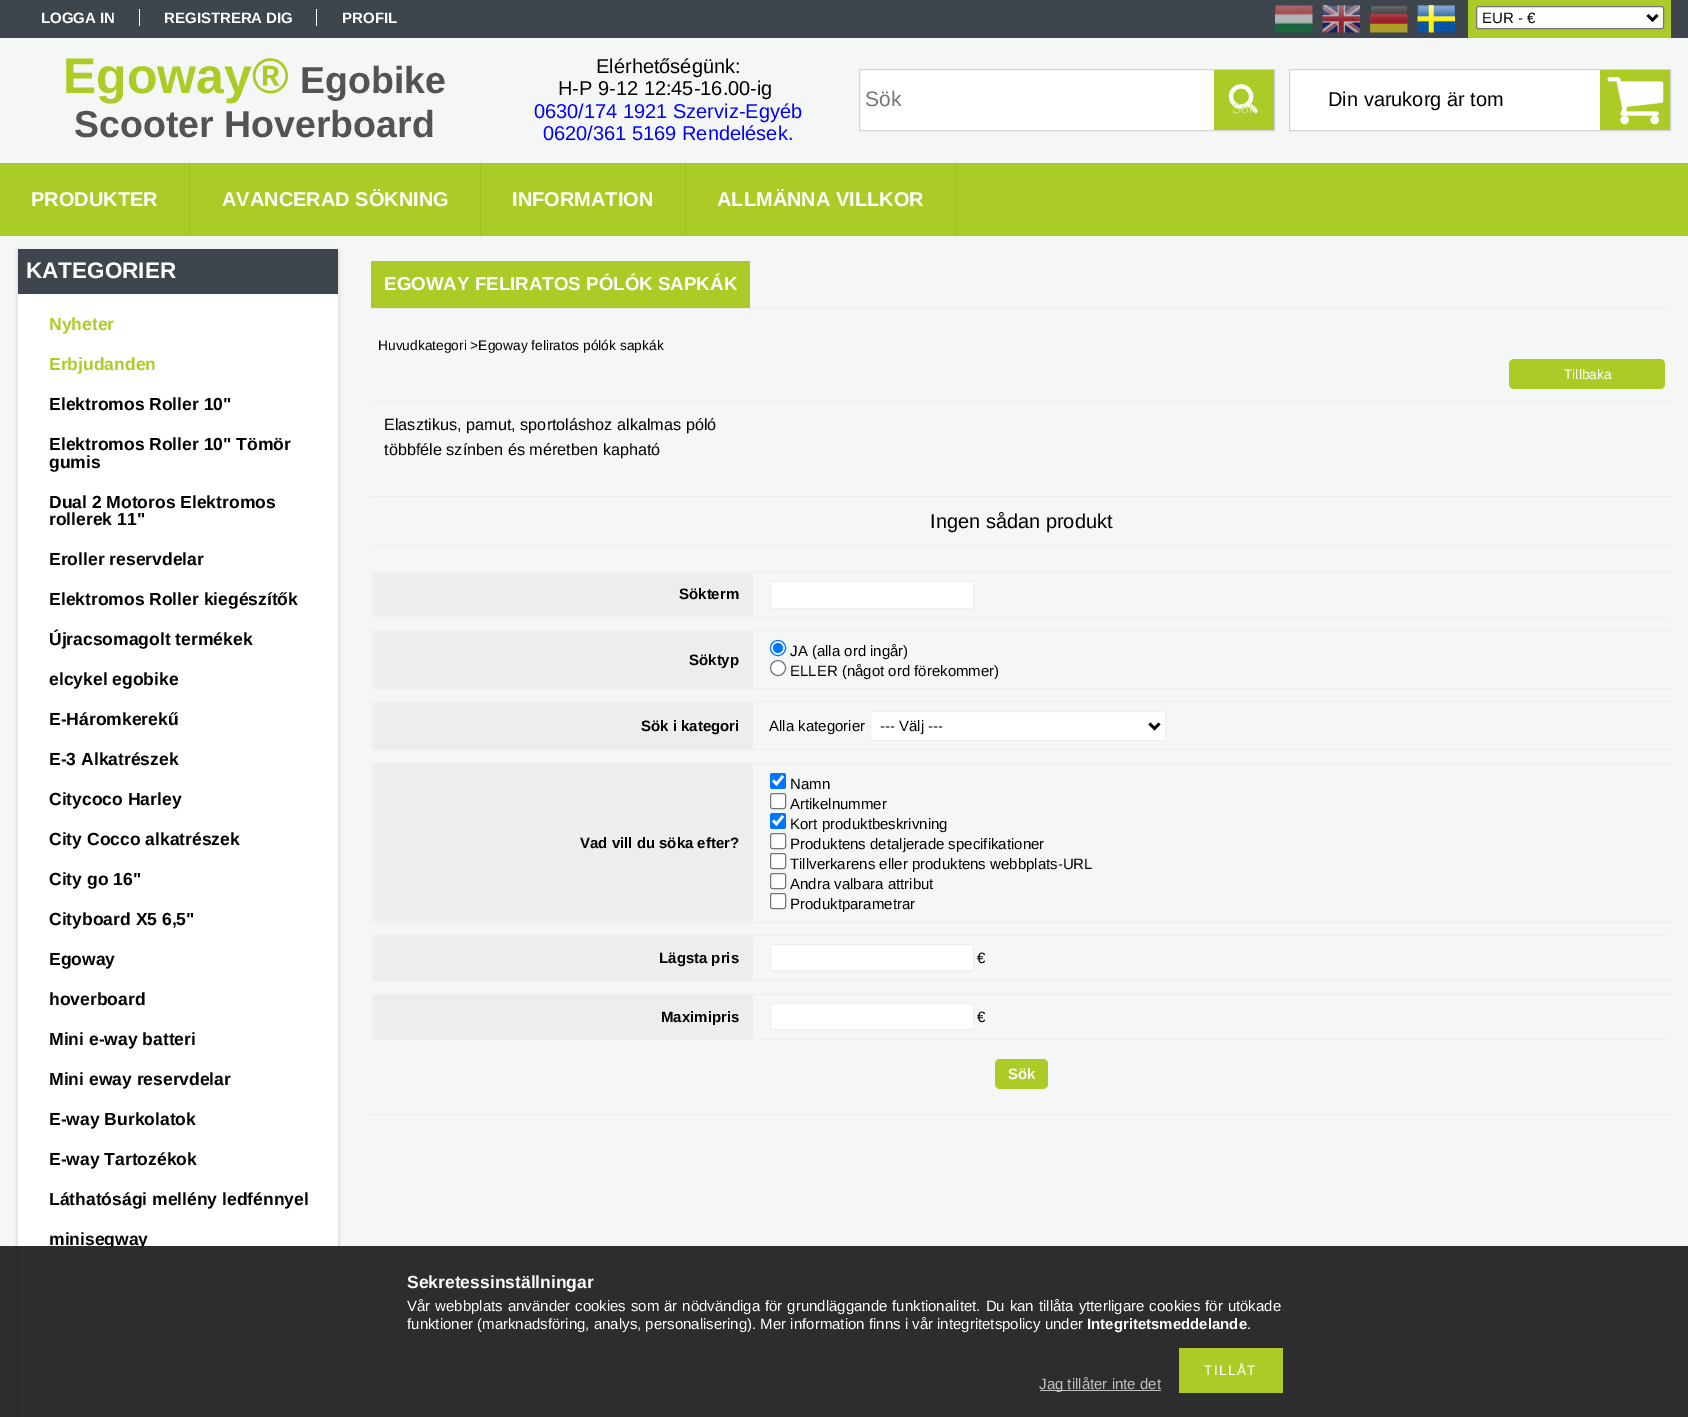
%!PS-Adobe-3.0
%%BoundingBox: 0 0 1688 1417
%%LanguageLevel: 3
%%Pages: 1
%%EndComments
%%BeginProlog
/m { moveto } bind def
/l { lineto } bind def
/h { closepath } bind def
/f { fill } bind def
/S { stroke } bind def
/q { gsave } bind def
/Q { grestore } bind def
/w { setlinewidth } bind def
/fn { [ exch dup neg 0 0 3 -1 roll 0 0 ] selectfont } def
/tx { moveto show } def
/bx { rectfill } def
/al { dup .setfillconstantalpha .setstrokeconstantalpha } def
/ci { newpath 0 360 arc closepath } def
/rr { 5 dict begin { /r /h /w /y /x } { exch def } forall
  x r add y moveto x w add y 2 copy h add r arct x w add y h add x 1 index r arct
  x y h add x y r arct x y 2 copy exch w add exch r arct closepath end } def
/sh { 12 dict begin { /a /b /q /h /w /y /x } { exch def } forall gsave /was 0 def
  9 -2 -9 { dup b mul 4 div /e exch def 1 sub .425 mul 2.718 exch exp 1 add a .99 .min exch div /now exch def
    1 1 now sub 1 was sub div sub al /was now def
    w h .min e 2 mul add 0 gt { x e sub y e sub w e 2 mul add h e 2 mul add
      q e add b .6 mul add w h .min 2 div e add .min 0 .max rr fill } if } for grestore end } def
/im { 5 dict begin { /h /w /y /x /name } { exch def } forall
  gsave x y translate w h scale
  w h 8 [w 0 0 h 0 0] name (r) file false 3 colorimage grestore end } def
%%EndProlog
%%BeginSetup
<< /PageSize [1688 1417] /PageUsesTransparency true >> setpagedevice
%%EndSetup
%%Page: 1 1
0 .pushpdf14devicefilter
0 1417 translate 1 -1 scale
4 setmiterlimit
0.961 0.965 0.965 setrgbcolor
0 0 1688 1417 bx
0.243 0.271 0.298 setrgbcolor
0 0 1688 38 bx
/LiberationSans-Bold 15 fn
1 setgray
(LOGGA IN) 41 23 tx
139 9 1 17 bx
(REGISTRERA DIG) 164 23 tx
316 9 1 17 bx
(PROFIL) 342 23 tx
(image0.raw) 1275 5 38 28 im
(image1.raw) 1322 5 38 28 im
(image2.raw) 1370 5 38 28 im
(image3.raw) 1417 5 38 28 im
0.671 0.8 0.153 setrgbcolor
1468 0 203 38 bx
1 setgray
1476.5 6.5 187 22 2 rr q f Q
0.463 setgray
S
0 setgray
2.5 w
1647.5 15 m 1652.5 20 l 1657.5 15 l S
/LiberationSans-Regular 15 fn
(EUR - €) 1482 23 tx
/LiberationSans-Bold 50 fn
0.671 0.8 0.153 setrgbcolor
(Egoway®) 63 93 tx
/LiberationSans-Bold 37.5 fn
0.325 setgray
(Egobike) 300 93 tx
(Scooter Hoverboard) 74 137 tx
/LiberationSans-Regular 20 fn
0 setgray
(Elérhetőségünk:) 596 73 tx
(H-P 9-12 12:45-16.00-ig) 558 95 tx
0 0 1 setrgbcolor
(0630/174 1921 Szerviz-Egyéb) 534 118 tx
(0620/361 5169 Rendelések.) 543 140 tx
1 setgray
860 70 354 60 bx
0.831 setgray
1 w
859.5 69.5 415 61 rectstroke
/LiberationSans-Regular 21 fn
0.459 setgray
(Sök) 865 106 tx
0.671 0.8 0.153 setrgbcolor
1214 70 60 60 bx
(image4.raw) 1228 84 30 30 im
/LiberationSans-Regular 13.75 fn
0.827 0.894 0.553 setrgbcolor
(Sök) 1232 113 tx
1 setgray
1290 70 310 60 bx
0.831 setgray
1289.5 69.5 381 61 rectstroke
/LiberationSans-Regular 20 fn
0 setgray
(Din varukorg är tom) 1328 106 tx
0.671 0.8 0.153 setrgbcolor
1600 70 70 60 bx
(image5.raw) 1607 77 57 48 im
0 163 1688 73 bx
0.624 0.745 0.141 setrgbcolor
189 163 1 73 bx
/LiberationSans-Bold 20 fn
1 setgray
(PRODUKTER) 31 206 tx
0.624 0.745 0.141 setrgbcolor
480 163 1 73 bx
1 setgray
(AVANCERAD SÖKNING) 222 206 tx
0.624 0.745 0.141 setrgbcolor
685 163 1 73 bx
1 setgray
(INFORMATION) 512 206 tx
0.624 0.745 0.141 setrgbcolor
955 163 1 73 bx
1 setgray
(ALLMÄNNA VILLKOR) 717 206 tx
0 setgray
18 251 320 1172 0 2 0.2 sh
0.243 0.271 0.298 setrgbcolor
18 249 320 45 bx
/LiberationSans-Bold 22.5 fn
1 setgray
(KATEGORIER) 26 278 tx
18 294 320 1123 bx
/LiberationSans-Bold 17.5 fn
0.671 0.8 0.153 setrgbcolor
(Nyheter) 49 330 tx
(Erbjudanden) 49 370 tx
0 setgray
(Elektromos Roller 10") 49 410 tx
(Elektromos Roller 10" Tömör) 49 450 tx
(gumis) 49 468 tx
(Dual 2 Motoros Elektromos) 49 508 tx
(rollerek 11") 49 525 tx
(Eroller reservdelar) 49 565 tx
(Elektromos Roller kiegészítők) 49 605 tx
(Újracsomagolt termékek) 49 645 tx
(elcykel egobike) 49 685 tx
(E-Háromkerekű) 49 725 tx
(E-3 Alkatrészek) 49 765 tx
(Citycoco Harley) 49 805 tx
(City Cocco alkatrészek) 49 845 tx
(City go 16") 49 885 tx
(Cityboard X5 6,5") 49 925 tx
(Egoway) 49 965 tx
(hoverboard) 49 1005 tx
(Mini e-way batteri) 49 1045 tx
(Mini eway reservdelar) 49 1085 tx
(E-way Burkolatok) 49 1125 tx
(E-way Tartozékok) 49 1165 tx
(Láthatósági mellény ledfénnyel) 49 1205 tx
(minisegway) 49 1245 tx
0.937 setgray
371 308 1300 1 bx
0.671 0.8 0.153 setrgbcolor
371 261 379 47 bx
/LiberationSans-Bold 18.75 fn
1 setgray
(EGOWAY FELIRATOS PÓLÓK SAPKÁK) 384 290 tx
/LiberationSans-Regular 13.75 fn
0 setgray
(Huvudkategori >Egoway feliratos pólók sapkák) 378 350 tx
0.671 0.8 0.153 setrgbcolor
1509 359 156 30 5 rr f
1 setgray
(Tillbaka) 1564 379 tx
0.925 0.918 0.918 setrgbcolor
371 401 1300 1 bx
/LiberationSans-Regular 16.25 fn
0 setgray
(Elasztikus, pamut, sportoláshoz alkalmas póló) 384 430 tx
(többféle színben és méretben kapható) 384 455 tx
0.925 0.918 0.918 setrgbcolor
371 496 1300 1 bx
/LiberationSans-Regular 20 fn
0 setgray
(Ingen sådan produkt) 930 528 tx
0.925 0.918 0.918 setrgbcolor
371 545 1300 1 bx
q
371 559 1300 542 rectclip
0.937 setgray
371.5 571.5 1302 46 rectstroke
Q
0.929 setgray
373 573 380 43 bx
/LiberationSans-Bold 15 fn
0 setgray
(Sökterm) 679 599 tx
1 setgray
770.5 581.5 m 973.5 581.5 l 973.5 608.5 l 770.5 608.5 l h q f Q
0.937 setgray
S
q
371 559 1300 542 rectclip
371.5 630.5 1302 58 rectstroke
Q
0.929 setgray
373 631 380 57 bx
0 setgray
(Söktyp) 689 665 tx
1 setgray
778 648 7.5 ci q f Q
0 0.459 1 setrgbcolor
S
778 648 5 ci f
/LiberationSans-Regular 15 fn
0 setgray
(JA \(alla ord ingår\)) 790 656 tx
1 setgray
778 668 7.5 ci q f Q
0.463 setgray
S
0 setgray
(ELLER \(något ord förekommer\)) 790 676 tx
q
371 559 1300 542 rectclip
0.937 setgray
371.5 701.5 1302 48 rectstroke
Q
0.929 setgray
373 703 380 46 bx
/LiberationSans-Bold 15 fn
0 setgray
(Sök i kategori) 641 731 tx
/LiberationSans-Regular 15 fn
(Alla kategorier) 769 731 tx
1 setgray
870.5 711.5 m 1165.5 711.5 l 1165.5 740.5 l 870.5 740.5 l h q f Q
0.937 setgray
S
0 setgray
2.5 w
1149.5 723.5 m 1154.5 728.5 l 1159.5 723.5 l S
(--- Välj ---) 880 731 tx
q
371 559 1300 542 rectclip
0.937 setgray
1 w
371.5 763.5 1302 159 rectstroke
Q
0.929 setgray
373 764 380 157 bx
/LiberationSans-Bold 15 fn
0 setgray
(Vad vill du söka efter?) 580 848 tx
0 0.459 1 setrgbcolor
770 773 16 16 2.5 rr f
1 setgray
2.6 w
773 780.5 m 776.5 784 l 783 776 l S
/LiberationSans-Regular 15 fn
0 setgray
(Namn) 790 789 tx
1 setgray
770.5 793.5 15 15 2 rr q f Q
0.463 setgray
1 w
S
0 setgray
(Artikelnummer) 790 809 tx
0 0.459 1 setrgbcolor
770 813 16 16 2.5 rr f
1 setgray
2.6 w
773 820.5 m 776.5 824 l 783 816 l S
0 setgray
(Kort produktbeskrivning) 790 829 tx
1 setgray
770.5 833.5 15 15 2 rr q f Q
0.463 setgray
1 w
S
0 setgray
(Produktens detaljerade specifikationer) 790 849 tx
1 setgray
770.5 853.5 15 15 2 rr q f Q
0.463 setgray
S
0 setgray
(Tillverkarens eller produktens webbplats-URL) 790 869 tx
1 setgray
770.5 873.5 15 15 2 rr q f Q
0.463 setgray
S
0 setgray
(Andra valbara attribut) 790 889 tx
1 setgray
770.5 893.5 15 15 2 rr q f Q
0.463 setgray
S
0 setgray
(Produktparametrar) 790 909 tx
q
371 559 1300 542 rectclip
0.937 setgray
371.5 935.5 1302 45 rectstroke
Q
0.929 setgray
373 936 380 44 bx
/LiberationSans-Bold 15 fn
0 setgray
(Lägsta pris) 659 963 tx
1 setgray
770.5 944.5 m 973.5 944.5 l 973.5 970.5 l 770.5 970.5 l h q f Q
0.937 setgray
S
/LiberationSans-Regular 15 fn
0 setgray
(€) 977 963 tx
q
371 559 1300 542 rectclip
0.937 setgray
371.5 994.5 1302 45 rectstroke
Q
0.929 setgray
373 995 380 44 bx
/LiberationSans-Bold 15 fn
0 setgray
(Maximipris) 661 1022 tx
1 setgray
770.5 1003.5 m 973.5 1003.5 l 973.5 1029.5 l 770.5 1029.5 l h q f Q
0.937 setgray
S
/LiberationSans-Regular 15 fn
0 setgray
(€) 977 1022 tx
0.671 0.8 0.153 setrgbcolor
995 1059 53 30 5 rr f
/LiberationSans-Bold 15 fn
1 setgray
(Sök) 1008 1079 tx
0.925 0.918 0.918 setrgbcolor
371 1114 1300 1 bx
0.95 al
0.133 setgray
0 1246 1688 171 bx
/LiberationSans-Bold 17.5 fn
1 al
1 setgray
(Sekretessinställningar) 407 1288 tx
/LiberationSans-Regular 15 fn
407 1311 m 0.75 0 32 (Vår webbplats använder cookies som är nödvändiga för grundläggande funktionalitet. Du kan tillåta ytterligare cookies för utökade) widthshow
(funktioner \(marknadsföring, analys, personalisering\). Mer information finns i vår integritetspolicy under) 407 1329 tx
/LiberationSans-Bold 15 fn
(Integritetsmeddelande) 1087 1329 tx
/LiberationSans-Regular 15 fn
(.) 1247 1329 tx
0.671 0.8 0.153 setrgbcolor
1179 1348 104 45 bx
/LiberationSans-Regular 13.75 fn
1 setgray
1204 1375 m 1.25 0 (TILLÅT) ashow
0.753 setgray
1040 1390 121 1 bx
/LiberationSans-Regular 15 fn
(Jag tillåter inte det) 1039 1389 tx
.poppdf14devicefilter showpage
%%EOF
